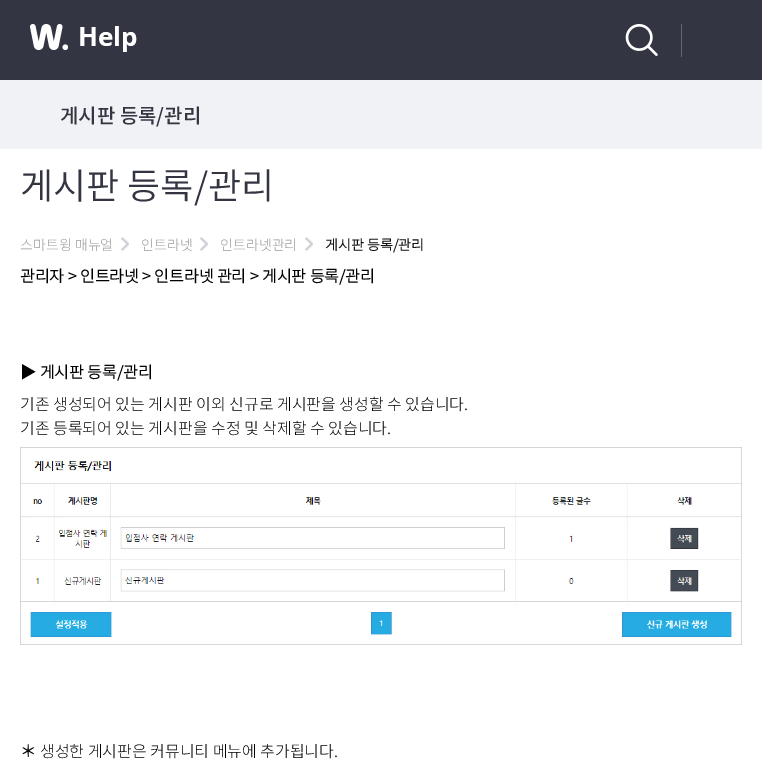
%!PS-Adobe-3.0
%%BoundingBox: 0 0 762 765
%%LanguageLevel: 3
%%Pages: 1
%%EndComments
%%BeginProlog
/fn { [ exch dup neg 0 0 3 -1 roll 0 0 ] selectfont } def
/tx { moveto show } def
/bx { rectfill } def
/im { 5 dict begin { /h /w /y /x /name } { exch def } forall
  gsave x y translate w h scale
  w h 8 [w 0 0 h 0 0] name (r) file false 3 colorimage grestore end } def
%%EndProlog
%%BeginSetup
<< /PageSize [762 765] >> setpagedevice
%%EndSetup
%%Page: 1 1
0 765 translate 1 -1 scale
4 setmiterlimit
1 setgray
0 0 762 765 bx
0.2 0.208 0.259 setrgbcolor
0 0 762 80 bx
(image0.raw) 30 24 107 28 im
(image1.raw) 625 24 33 32 im
0.4 0.408 0.443 setrgbcolor
681 24 1 33 bx
0.945 0.949 0.961 setrgbcolor
0 80 762 69 bx
/NotoSansKR-Medium 20 fn
0.2 0.208 0.259 setrgbcolor
(게시판 등록/관리) 60 123 tx
/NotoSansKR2-Light 36 fn
(게시판 등록/관리) 20 199 tx
/NotoSansKR-Light 14 fn
0.6 setgray
(스마트윙 매뉴얼) 20 250 tx
(image2.raw) 121 237 8 14 im
(인트라넷) 141 250 tx
(image2.raw) 200 237 8 14 im
(인트라넷관리) 220 250 tx
(image2.raw) 305 237 8 14 im
/NotoSansKR-Bold 14 fn
0.067 setgray
(게시판 등록/관리) 325 250 tx
/NotoSansKR-Bold 16 fn
0 setgray
(관리자 > 인트라넷 > 인트라넷 관리 > 게시판 등록/관리) 20 282 tx
(▶ 게시판 등록/관리) 20 378 tx
/NotoSansKR-Light 16 fn
(기존 생성되어 있는 게시판 이외 신규로 게시판을 생성할 수 있습니다.) 20 410 tx
(기존 등록되어 있는 게시판을 수정 및 삭제할 수 있습니다.) 20 434 tx
(image3.raw) 20 447 722 198 im
/NotoSansKR-Bold 16 fn
(＊) 20 757 tx
/NotoSansKR-Light 16 fn
(생성한 게시판은 커뮤니티 메뉴에 추가됩니다.) 40 757 tx
showpage
%%EOF
